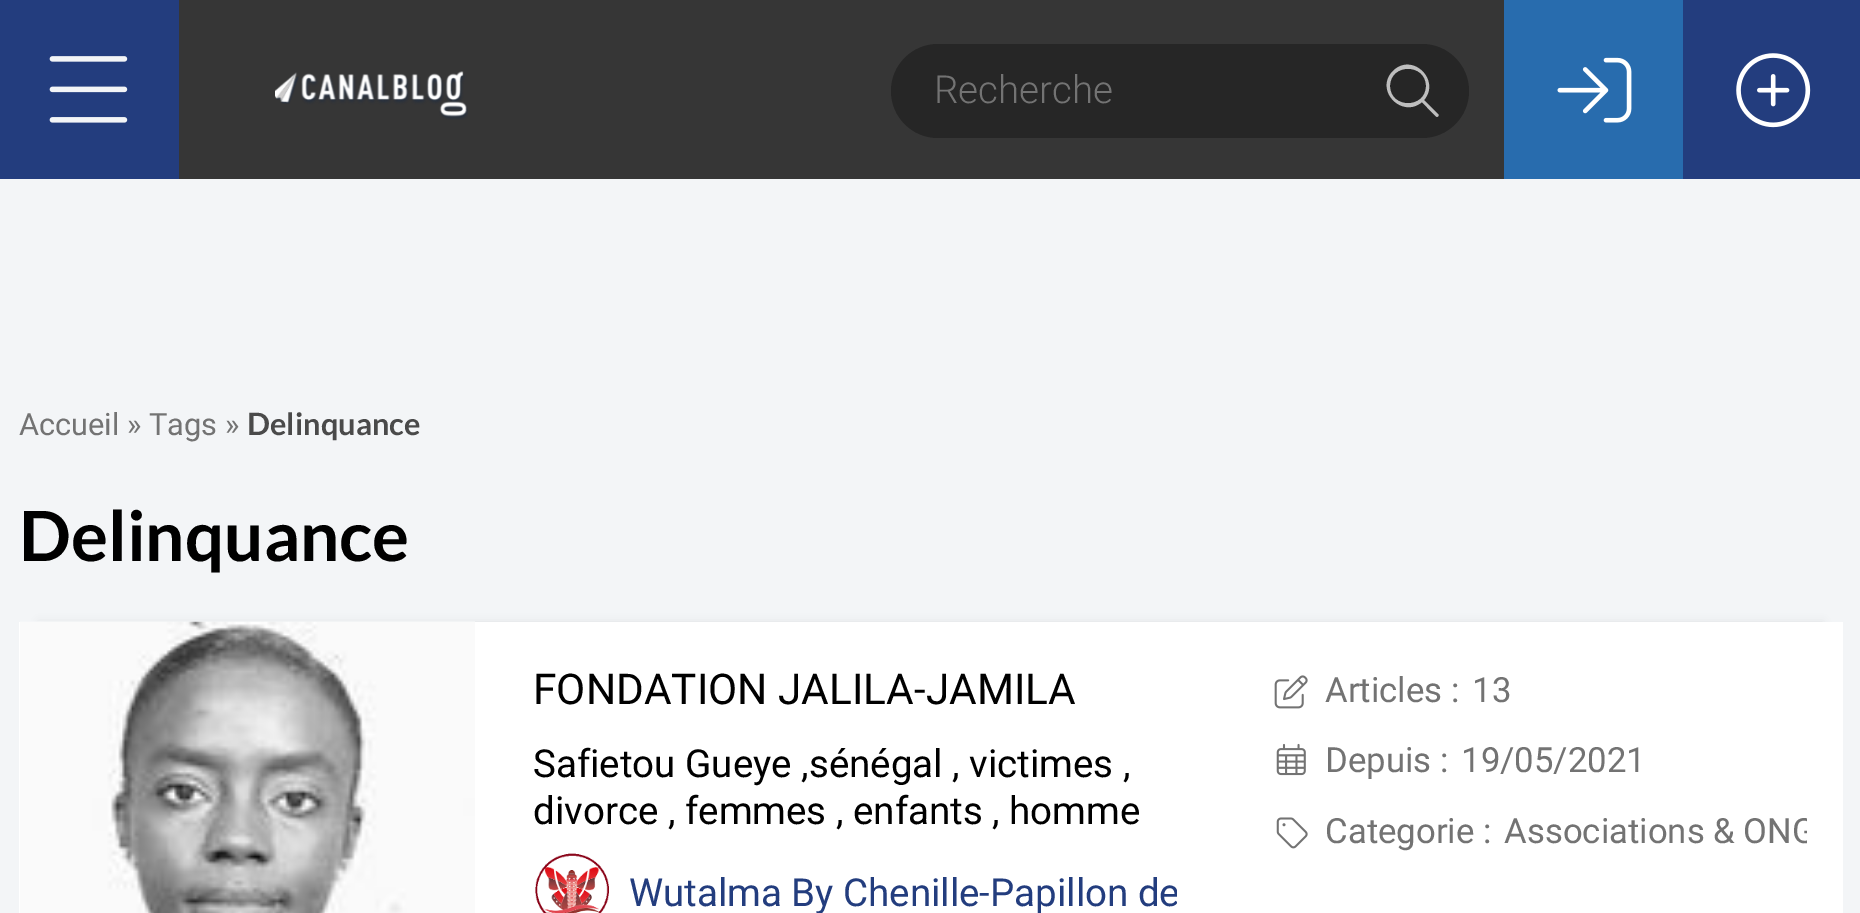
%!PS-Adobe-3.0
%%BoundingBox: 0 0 1860 913
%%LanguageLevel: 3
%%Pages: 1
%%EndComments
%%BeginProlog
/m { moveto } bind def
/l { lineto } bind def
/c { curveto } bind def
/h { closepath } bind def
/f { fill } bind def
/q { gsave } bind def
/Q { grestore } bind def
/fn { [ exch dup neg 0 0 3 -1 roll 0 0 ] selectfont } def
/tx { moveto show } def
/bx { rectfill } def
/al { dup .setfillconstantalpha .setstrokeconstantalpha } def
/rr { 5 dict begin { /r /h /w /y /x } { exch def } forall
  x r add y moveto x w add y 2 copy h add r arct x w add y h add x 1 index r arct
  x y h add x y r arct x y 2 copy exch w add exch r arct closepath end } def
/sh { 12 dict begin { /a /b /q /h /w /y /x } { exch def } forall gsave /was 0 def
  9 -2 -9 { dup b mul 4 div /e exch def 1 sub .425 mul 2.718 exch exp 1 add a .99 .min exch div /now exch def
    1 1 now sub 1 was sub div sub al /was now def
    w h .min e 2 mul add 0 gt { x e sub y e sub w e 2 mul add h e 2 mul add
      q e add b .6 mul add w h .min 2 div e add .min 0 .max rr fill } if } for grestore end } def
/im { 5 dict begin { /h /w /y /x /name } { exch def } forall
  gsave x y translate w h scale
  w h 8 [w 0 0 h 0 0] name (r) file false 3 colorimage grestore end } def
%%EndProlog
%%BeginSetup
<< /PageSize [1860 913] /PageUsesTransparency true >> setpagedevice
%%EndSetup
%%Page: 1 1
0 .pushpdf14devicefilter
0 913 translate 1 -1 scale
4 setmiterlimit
0.953 0.961 0.969 setrgbcolor
0 0 1860 913 bx
0.212 setgray
179 0 1325 179 bx
0.137 0.239 0.494 setrgbcolor
0 0 179 179 bx
(image0.raw) 49 56 79 67 im
(image1.raw) 275 71 193 49 im
0.149 setgray
891 44 578 94 47 rr f
/Roboto-Light 38.5 fn
0.451 setgray
(Recherche) 934 103 tx
0.745 setgray
1426 86 m 1426 63 1390 63 1390 86 c 1390 109 1426 109 1426 86 c h 1422 102 m 1402 119 1374 90 1393 71 c 1412 52 1441 80 1424 100 c 1438 114 l 1439 115 1439 116 1437 117 c 1436 117 1424 104 1422 102 c h f
0.157 0.424 0.682 setrgbcolor
1504 0 179 179 bx
(image2.raw) 1557 57 75 66 im
0.137 0.239 0.494 setrgbcolor
1683 0 177 179 bx
(image3.raw) 1736 53 75 75 im
/Roboto-Regular 30.75 fn
0.451 setgray
(Accueil » Tags ») 19 435 tx
/Lato-Bold 30.75 fn
0.29 setgray
(Delinquance) 247 435 tx
/Lato-Bold 69.25 fn
0 setgray
(Delinquance) 19 561 tx
39 622 1784 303 0 4 0.07 sh
1 setgray
19 622 1824 291 bx
(image4.raw) 20 621 455 292 im
/Roboto-Regular 42.4 fn
0 setgray
(FONDATION JALILA-JAMILA) 533 704 tx
/Roboto-Regular 38.5 fn
(Safietou Gueye ,sénégal , victimes ,) 533 777 tx
(divorce , femmes , enfants , homme) 533 824 tx
(image5.raw) 535 853 74 60 im
q
534 853 643 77 rectclip
0.137 0.239 0.494 setrgbcolor
(Wutalma By Chenille-Papillon de) 629 906 tx
Q
(image6.raw) 1274 675 34 34 im
/Roboto-Regular 34.75 fn
0.451 setgray
(Articles :) 1325 702 tx
(13) 1472 702 tx
(image7.raw) 1276 743 30 33 im
(Depuis :) 1325 772 tx
(19/05/2021) 1461 772 tx
(image8.raw) 1276 817 32 32 im
(Categorie :) 1325 843 tx
q
1271 798 536 68 rectclip
(Associations & ONG) 1504 843 tx
Q
.poppdf14devicefilter showpage
%%EOF
